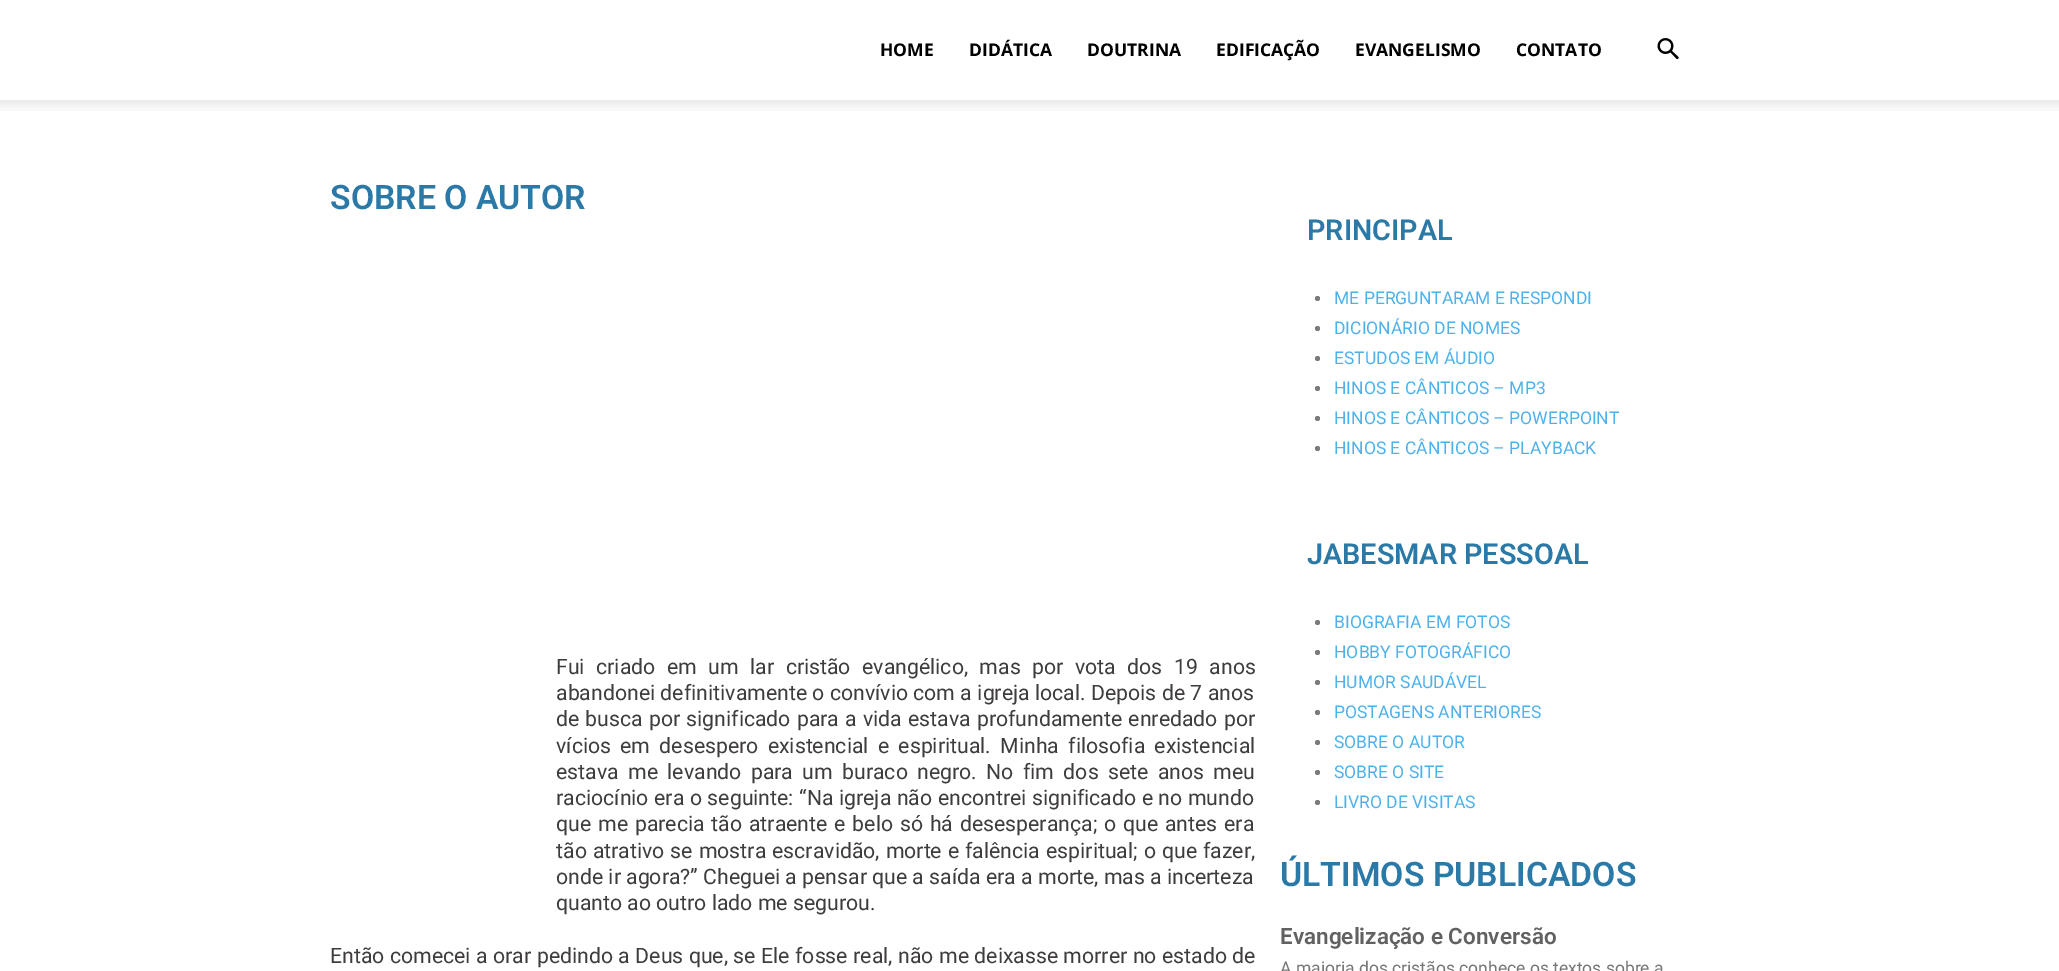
%!PS-Adobe-3.0
%%BoundingBox: 0 0 2059 971
%%LanguageLevel: 3
%%Pages: 1
%%EndComments
%%BeginProlog
/m { moveto } bind def
/f { fill } bind def
/fn { [ exch dup neg 0 0 3 -1 roll 0 0 ] selectfont } def
/tx { moveto show } def
/bx { rectfill } def
/ci { newpath 0 360 arc closepath } def
/im { 5 dict begin { /h /w /y /x /name } { exch def } forall
  gsave x y translate w h scale
  w h 8 [w 0 0 h 0 0] name (r) file false 3 colorimage grestore end } def
%%EndProlog
%%BeginSetup
<< /PageSize [2059 971] >> setpagedevice
%%EndSetup
%%Page: 1 1
0 971 translate 1 -1 scale
4 setmiterlimit
1 setgray
0 0 2059 971 bx
/OpenSans-Bold 17.5 fn
0 setgray
(HOME) 880 56 tx
(DIDÁTICA) 969 56 tx
(DOUTRINA) 1087 56 tx
(EDIFICAÇÃO) 1216 56 tx
(EVANGELISMO) 1355 56 tx
(CONTATO) 1516 56 tx
(image0.raw) 1657 38 22 22 im
(image1.raw) 0 100 2059 11 im
/Roboto-SemiBold 33.75 fn
0.165 0.475 0.651 setrgbcolor
(SOBRE O AUTOR) 330 209 tx
/Roboto-Regular 21.25 fn
0.247 0.235 0.235 setrgbcolor
556 674 m 6.25 0 32 (Fui criado em um lar cristão evangélico, mas por vota dos 19 anos) widthshow
556 700 m 0.1 0 32 (abandonei definitivamente o convívio com a igreja local. Depois de 7 anos) widthshow
556 726 m 0.9 0 32 (de busca por significado para a vida estava profundamente enredado por) widthshow
556 753 m 4 0 32 (vícios em desespero existencial e espiritual. Minha filosofia existencial) widthshow
556 779 m 4.1 0 32 (estava me levando para um buraco negro. No fim dos sete anos meu) widthshow
556 805 m 0.3 0 32 (raciocínio era o seguinte: “Na igreja não encontrei significado e no mundo) widthshow
556 831 m 1.6 0 32 (que me parecia tão atraente e belo só há desesperança; o que antes era) widthshow
556 858 m 0.75 0 32 (tão atrativo se mostra escravidão, morte e falência espiritual; o que fazer,) widthshow
(onde ir agora?” Cheguei a pensar que a saída era a morte, mas a incerteza) 556 884 tx
(quanto ao outro lado me segurou.) 556 910 tx
330 963 m 0.2 0 32 (Então comecei a orar pedindo a Deus que, se Ele fosse real, não me deixasse morrer no estado de) widthshow
/Roboto-SemiBold 28.75 fn
0.165 0.475 0.651 setrgbcolor
(PRINCIPAL) 1307 240 tx
0.478 setgray
1317.5 298.5 2.5 ci f
/Roboto-Regular 17.5 fn
0.302 0.698 0.925 setrgbcolor
(ME PERGUNTARAM E RESPONDI) 1334 304 tx
0.478 setgray
1317.5 328.5 2.5 ci f
0.302 0.698 0.925 setrgbcolor
(DICIONÁRIO DE NOMES) 1334 334 tx
0.478 setgray
1317.5 358.5 2.5 ci f
0.302 0.698 0.925 setrgbcolor
(ESTUDOS EM ÁUDIO) 1334 364 tx
0.478 setgray
1317.5 388.5 2.5 ci f
0.302 0.698 0.925 setrgbcolor
(HINOS E CÂNTICOS – MP3) 1334 394 tx
0.478 setgray
1317.5 418.5 2.5 ci f
0.302 0.698 0.925 setrgbcolor
(HINOS E CÂNTICOS – POWERPOINT) 1334 424 tx
0.478 setgray
1317.5 448.5 2.5 ci f
0.302 0.698 0.925 setrgbcolor
(HINOS E CÂNTICOS – PLAYBACK) 1334 454 tx
/Roboto-SemiBold 28.75 fn
0.165 0.475 0.651 setrgbcolor
(JABESMAR PESSOAL) 1307 564 tx
0.478 setgray
1317.5 622.5 2.5 ci f
/Roboto-Regular 17.5 fn
0.302 0.698 0.925 setrgbcolor
(BIOGRAFIA EM FOTOS) 1334 628 tx
0.478 setgray
1317.5 652.5 2.5 ci f
0.302 0.698 0.925 setrgbcolor
(HOBBY FOTOGRÁFICO) 1334 658 tx
0.478 setgray
1317.5 682.5 2.5 ci f
0.302 0.698 0.925 setrgbcolor
(HUMOR SAUDÁVEL) 1334 688 tx
0.478 setgray
1317.5 712.5 2.5 ci f
0.302 0.698 0.925 setrgbcolor
(POSTAGENS ANTERIORES) 1334 718 tx
0.478 setgray
1317.5 742.5 2.5 ci f
0.302 0.698 0.925 setrgbcolor
(SOBRE O AUTOR) 1334 748 tx
0.478 setgray
1317.5 772.5 2.5 ci f
0.302 0.698 0.925 setrgbcolor
(SOBRE O SITE) 1334 778 tx
0.478 setgray
1317.5 802.5 2.5 ci f
0.302 0.698 0.925 setrgbcolor
(LIVRO DE VISITAS) 1334 808 tx
/Roboto-SemiBold 33.75 fn
0.165 0.475 0.651 setrgbcolor
(ÚLTIMOS PUBLICADOS) 1280 886 tx
/Roboto-SemiBold 22.5 fn
0.38 setgray
(Evangelização e Conversão) 1280 944 tx
/Roboto-Regular 17.5 fn
0.467 setgray
(A maioria dos cristãos conhece os textos sobre a) 1280 974 tx
showpage
%%EOF
